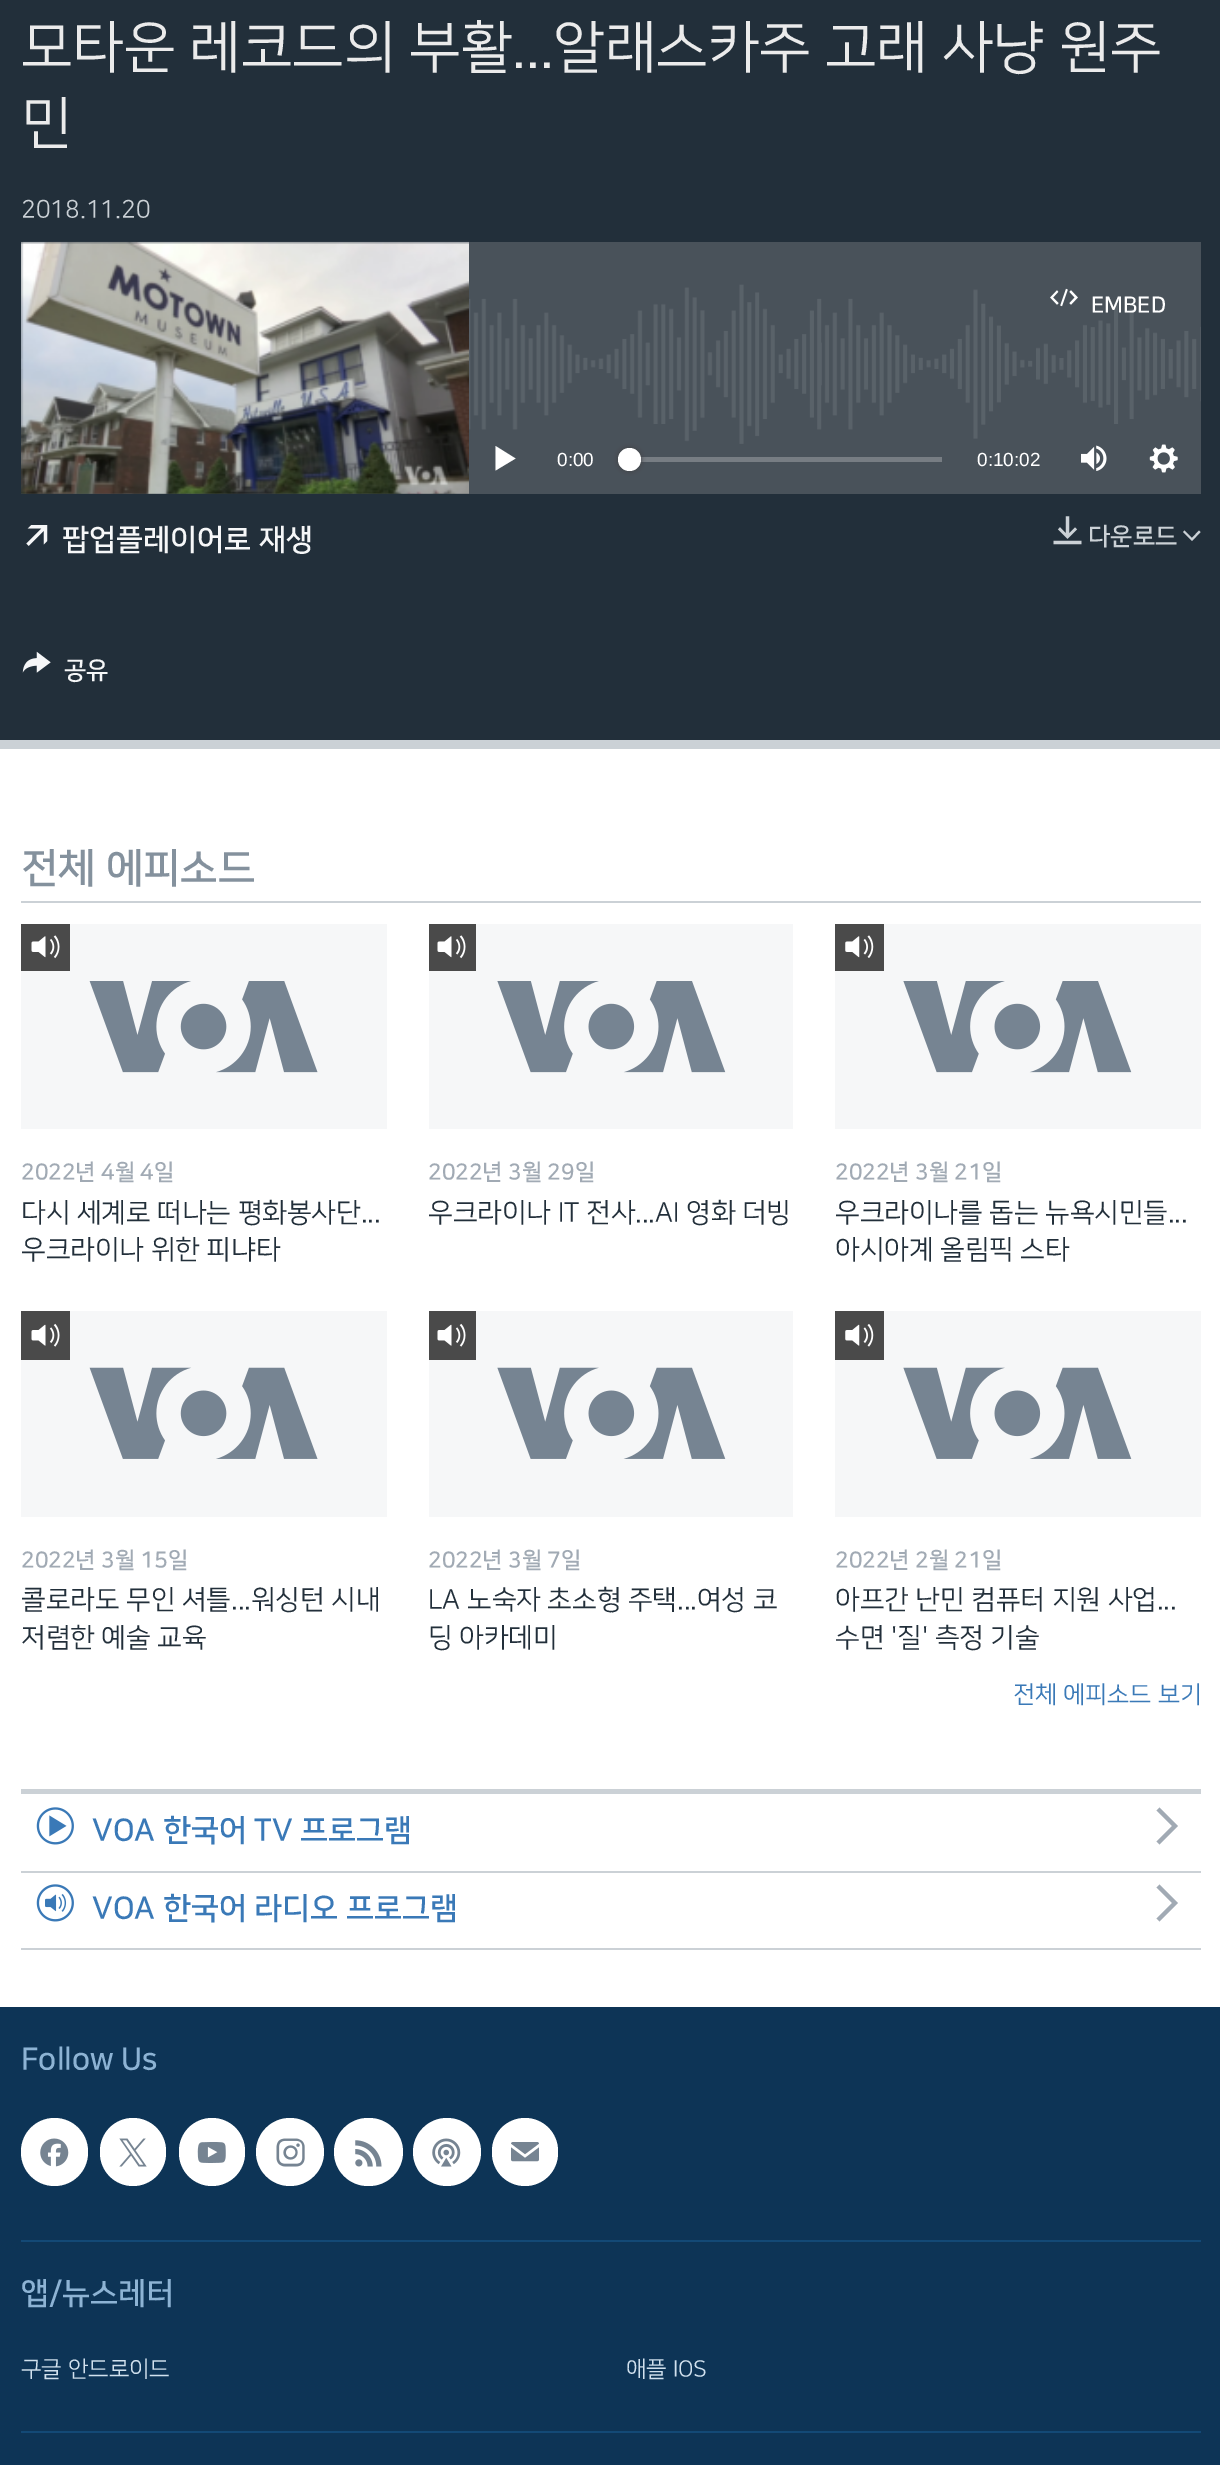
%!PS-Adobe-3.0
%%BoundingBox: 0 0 1220 2465
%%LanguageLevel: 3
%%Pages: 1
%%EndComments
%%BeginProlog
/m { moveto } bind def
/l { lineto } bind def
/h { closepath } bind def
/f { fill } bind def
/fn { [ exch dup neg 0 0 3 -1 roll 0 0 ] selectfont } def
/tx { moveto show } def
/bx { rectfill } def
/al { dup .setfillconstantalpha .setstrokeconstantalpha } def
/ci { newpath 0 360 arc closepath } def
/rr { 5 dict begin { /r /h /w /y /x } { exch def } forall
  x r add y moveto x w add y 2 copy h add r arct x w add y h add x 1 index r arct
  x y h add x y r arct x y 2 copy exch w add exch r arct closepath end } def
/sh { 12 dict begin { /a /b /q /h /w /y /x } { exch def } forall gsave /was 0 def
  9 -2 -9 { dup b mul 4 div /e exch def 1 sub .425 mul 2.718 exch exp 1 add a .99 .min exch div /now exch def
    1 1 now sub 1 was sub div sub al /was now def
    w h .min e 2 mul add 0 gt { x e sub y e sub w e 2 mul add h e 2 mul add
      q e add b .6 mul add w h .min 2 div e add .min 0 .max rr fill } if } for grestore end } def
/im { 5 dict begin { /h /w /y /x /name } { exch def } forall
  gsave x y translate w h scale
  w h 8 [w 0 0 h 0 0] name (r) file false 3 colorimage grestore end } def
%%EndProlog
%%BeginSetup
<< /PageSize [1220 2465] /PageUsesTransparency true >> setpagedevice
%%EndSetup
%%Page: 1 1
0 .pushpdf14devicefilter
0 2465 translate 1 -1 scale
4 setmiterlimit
1 setgray
0 0 1220 2465 bx
0.133 0.184 0.227 setrgbcolor
0 0 1220 740 bx
0.796 0.82 0.839 setrgbcolor
0 740 1220 9 bx
/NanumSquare-Regular 56.5 fn
0.922 setgray
(모타운 레코드의 부활...알래스카주 고래 사냥 원주) 21 65 tx
(민) 21 141 tx
/NanumSquare-Regular 24.5 fn
0.796 0.82 0.839 setrgbcolor
(2018.11.20) 21 217 tx
0.286 0.322 0.353 setrgbcolor
21 242 1180 252 bx
(image0.raw) 21 284 1180 160 im
(image1.raw) 21 241 448 253 im
(image2.raw) 1050 288 28 19 im
/NanumSquare-Bold 22.25 fn
1 setgray
(EMBED) 1091 312 tx
495.5 470.5 m 515.5 458.5 l 495.5 446 l h f
/LiberationSans-Regular 19 fn
(0:00) 557 466 tx
0.467 0.49 0.514 setrgbcolor
640 457 302 5 bx
0.255 0.255 0.267 setrgbcolor
618 448 23 23 11.5 2.5 1 sh
1 setgray
629.5 459.5 11.5 ci f
(0:10:02) 977 466 tx
(image3.raw) 1081 445 26 26 im
(image4.raw) 1149 444 29 29 im
(image5.raw) 26 525 22 21 im
/NanumSquare-Bold 29.75 fn
0.965 0.969 0.973 setrgbcolor
(팝업플레이어로 재생) 62 549 tx
(image6.raw) 1053 516 29 29 im
/NanumSquare-Bold 24.5 fn
0.796 0.82 0.839 setrgbcolor
(다운로드) 1088 544 tx
1183 532 m 1192 541 l 1200.5 532 l 1199 530.5 l 1192 538 l 1184.5 530.5 l h f
(image7.raw) 22 651 29 22 im
0.965 0.969 0.973 setrgbcolor
(공유) 64 678 tx
0.796 0.82 0.839 setrgbcolor
21 901 1180 2 bx
/NanumSquare-Bold 41 fn
0.518 0.569 0.616 setrgbcolor
(전체 에피소드) 21 881 tx
0.965 0.969 0.973 setrgbcolor
21 924 366 205 bx
(image8.raw) 89 981 229 92 im
0.29 setgray
21 924 49 47 bx
(image9.raw) 31 935 29 24 im
/NanumSquare-Bold 22.25 fn
0.631 0.667 0.706 setrgbcolor
(2022년 4월 4일) 21 1179 tx
/NanumSquare-Regular 27 fn
0.133 0.184 0.227 setrgbcolor
(다시 세계로 떠나는 평화봉사단...) 21 1221 tx
(우크라이나 위한 피냐타) 21 1258 tx
0.965 0.969 0.973 setrgbcolor
429 924 364 205 bx
(image10.raw) 497 981 229 92 im
0.29 setgray
429 924 47 47 bx
(image9.raw) 437 935 29 24 im
/NanumSquare-Bold 22.25 fn
0.631 0.667 0.706 setrgbcolor
(2022년 3월 29일) 428 1179 tx
/NanumSquare-Regular 27 fn
0.133 0.184 0.227 setrgbcolor
(우크라이나 IT 전사...AI 영화 더빙) 428 1221 tx
0.965 0.969 0.973 setrgbcolor
835 924 366 205 bx
(image10.raw) 903 981 229 92 im
0.29 setgray
835 924 49 47 bx
(image11.raw) 845 935 29 23 im
/NanumSquare-Bold 22.25 fn
0.631 0.667 0.706 setrgbcolor
(2022년 3월 21일) 835 1179 tx
/NanumSquare-Regular 27 fn
0.133 0.184 0.227 setrgbcolor
(우크라이나를 돕는 뉴욕시민들...) 835 1221 tx
(아시아계 올림픽 스타) 835 1258 tx
0.965 0.969 0.973 setrgbcolor
21 1311 366 206 bx
(image12.raw) 89 1367 229 92 im
0.29 setgray
21 1311 49 49 bx
(image13.raw) 31 1323 29 24 im
/NanumSquare-Bold 22.25 fn
0.631 0.667 0.706 setrgbcolor
(2022년 3월 15일) 21 1567 tx
/NanumSquare-Regular 27 fn
0.133 0.184 0.227 setrgbcolor
(콜로라도 무인 셔틀...워싱턴 시내) 21 1608 tx
(저렴한 예술 교육) 21 1646 tx
0.965 0.969 0.973 setrgbcolor
429 1311 364 206 bx
(image14.raw) 497 1367 229 92 im
0.29 setgray
429 1311 47 49 bx
(image13.raw) 437 1323 29 24 im
/NanumSquare-Bold 22.25 fn
0.631 0.667 0.706 setrgbcolor
(2022년 3월 7일) 428 1567 tx
/NanumSquare-Regular 27 fn
0.133 0.184 0.227 setrgbcolor
(LA 노숙자 초소형 주택...여성 코) 428 1608 tx
(딩 아카데미) 428 1646 tx
0.965 0.969 0.973 setrgbcolor
835 1311 366 206 bx
(image14.raw) 903 1367 229 92 im
0.29 setgray
835 1311 49 49 bx
(image15.raw) 845 1324 29 23 im
/NanumSquare-Bold 22.25 fn
0.631 0.667 0.706 setrgbcolor
(2022년 2월 21일) 835 1567 tx
/NanumSquare-Regular 27 fn
0.133 0.184 0.227 setrgbcolor
(아프간 난민 컴퓨터 지원 사업...) 835 1608 tx
(수면 '질' 측정 기술) 835 1646 tx
/NanumSquare-Regular 24.25 fn
0.227 0.475 0.718 setrgbcolor
(전체 에피소드 보기) 1013 1702 tx
0.796 0.82 0.839 setrgbcolor
21 1789 1180 5 bx
21 1871 1180 2 bx
(image16.raw) 36 1807 38 38 im
/NanumSquare-Bold 30.75 fn
0.227 0.475 0.718 setrgbcolor
(VOA 한국어 TV 프로그램) 92 1840 tx
0.631 0.667 0.706 setrgbcolor
1159.5 1844.5 m 1178 1826 l 1159.5 1807.5 l 1156.5 1810.5 l 1172 1826 l 1156.5 1841.5 l h f
0.796 0.82 0.839 setrgbcolor
21 1948 1180 2 bx
(image17.raw) 36 1884 38 38 im
0.227 0.475 0.718 setrgbcolor
(VOA 한국어 라디오 프로그램) 92 1918 tx
0.631 0.667 0.706 setrgbcolor
1159.5 1921.5 m 1178 1903 l 1159.5 1884.5 l 1156.5 1887.5 l 1172 1903 l 1156.5 1918.5 l h f
0.051 0.204 0.337 setrgbcolor
0 2007 1220 458 bx
0.553 0.702 0.831 setrgbcolor
(Follow Us) 21 2069 tx
1 setgray
21 2118 67 68 33.5 rr f
(image18.raw) 40 2138 29 29 im
100 2118 66 68 33 rr f
(image19.raw) 119 2138 28 29 im
179 2118 66 68 33 rr f
(image20.raw) 197 2142 29 21 im
290 2152 34 ci f
(image21.raw) 276 2138 29 29 im
334 2118 69 68 34 rr f
(image22.raw) 355 2140 27 27 im
447 2152 34 ci f
(image23.raw) 432 2138 29 29 im
492 2118 66 68 33 rr f
(image24.raw) 511 2142 28 20 im
0.075 0.286 0.463 setrgbcolor
21 2240 1180 2 bx
0.553 0.702 0.831 setrgbcolor
(앱/뉴스레터) 21 2303 tx
/NanumSquare-Regular 22.5 fn
0.82 0.882 0.933 setrgbcolor
(구글 안드로이드) 21 2376 tx
(애플 IOS) 626 2376 tx
0.075 0.286 0.463 setrgbcolor
21 2431 1180 2 bx
.poppdf14devicefilter showpage
%%EOF
